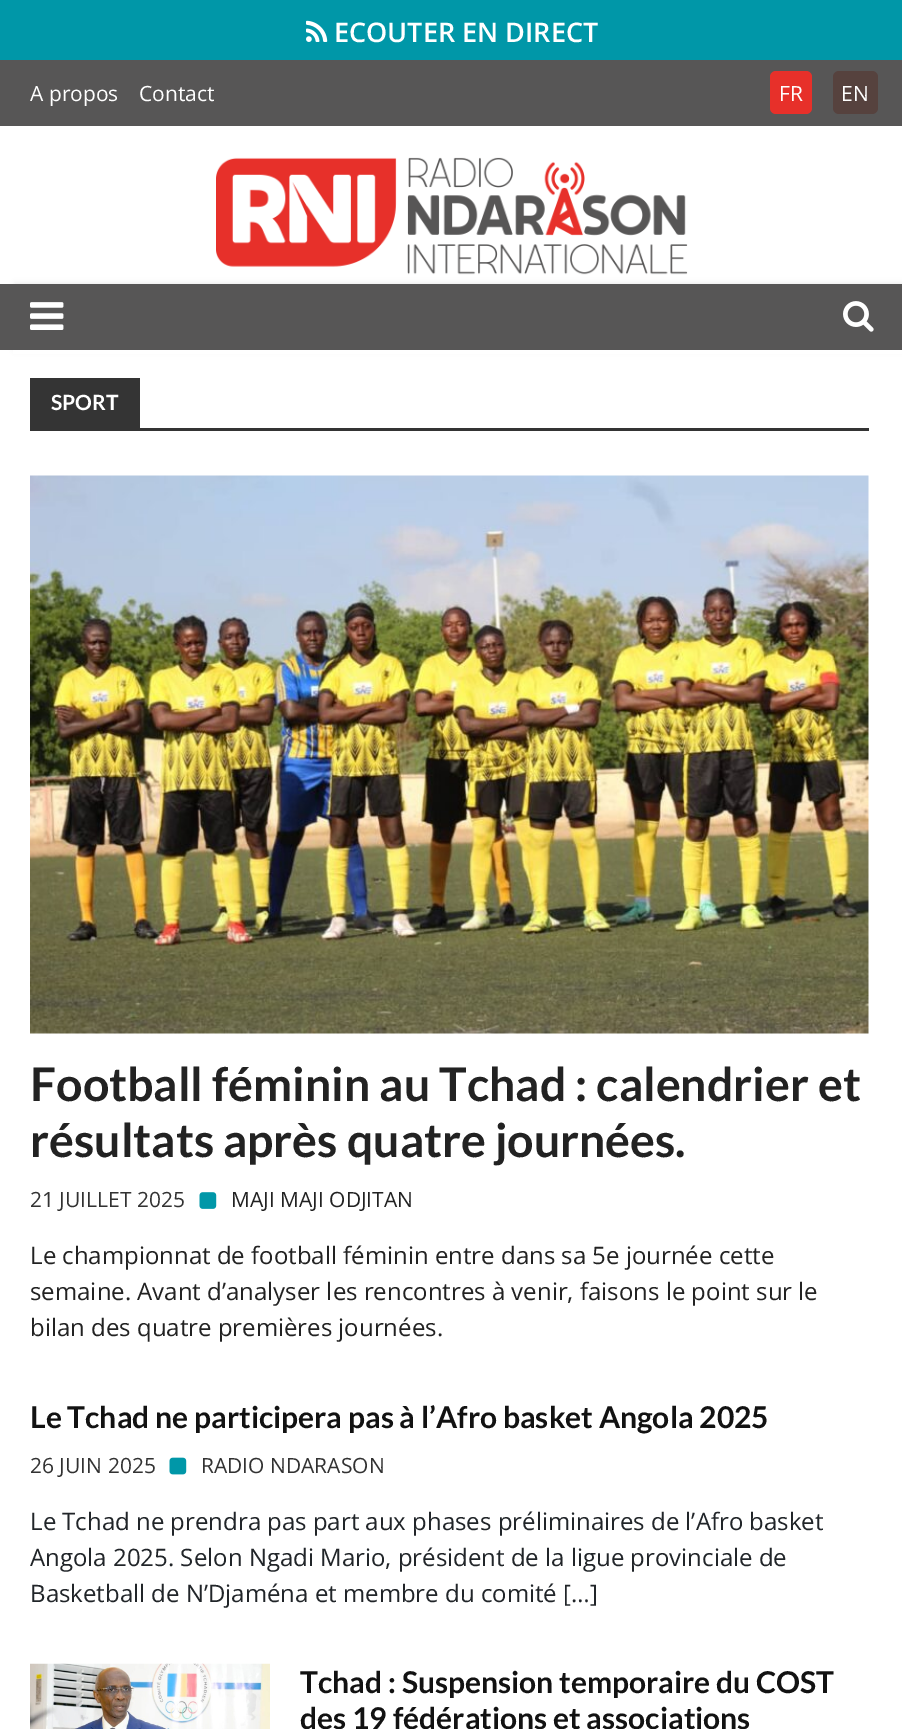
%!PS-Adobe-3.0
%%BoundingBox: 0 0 902 1729
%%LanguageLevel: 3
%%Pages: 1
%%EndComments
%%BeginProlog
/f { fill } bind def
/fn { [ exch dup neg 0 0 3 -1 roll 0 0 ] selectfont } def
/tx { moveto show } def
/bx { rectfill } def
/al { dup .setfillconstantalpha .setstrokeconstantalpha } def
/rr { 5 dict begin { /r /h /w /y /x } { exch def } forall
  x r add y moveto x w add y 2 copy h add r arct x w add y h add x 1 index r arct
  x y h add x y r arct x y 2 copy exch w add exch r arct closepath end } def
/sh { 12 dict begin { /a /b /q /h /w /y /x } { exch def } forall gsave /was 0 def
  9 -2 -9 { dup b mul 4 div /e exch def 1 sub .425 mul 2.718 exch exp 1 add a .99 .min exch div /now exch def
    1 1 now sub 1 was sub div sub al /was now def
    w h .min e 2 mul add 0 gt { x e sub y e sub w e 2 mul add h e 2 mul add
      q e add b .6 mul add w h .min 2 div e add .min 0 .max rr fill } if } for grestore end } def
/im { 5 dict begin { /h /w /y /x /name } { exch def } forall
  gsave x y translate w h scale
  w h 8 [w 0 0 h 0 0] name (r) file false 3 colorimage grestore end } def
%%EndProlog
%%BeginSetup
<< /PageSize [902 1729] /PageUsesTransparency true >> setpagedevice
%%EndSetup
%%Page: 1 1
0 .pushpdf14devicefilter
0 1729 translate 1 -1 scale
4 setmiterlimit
1 setgray
0 0 902 1729 bx
0 0.592 0.659 setrgbcolor
0 0 902 60 bx
(image0.raw) 306 20 22 22 im
/OpenSans-SemiBold 27 fn
1 setgray
(ECOUTER EN DIRECT) 334 42 tx
0.341 0.337 0.337 setrgbcolor
0 60 902 66 bx
/OpenSans-Regular 21 fn
1 setgray
(A propos) 30 101 tx
(Contact) 139 101 tx
0.906 0.188 0.165 setrgbcolor
770 71 42 43 6 rr f
1 setgray
(FR) 779 101 tx
0.337 0.259 0.243 setrgbcolor
833 71 45 43 6 rr f
1 setgray
(EN) 841 101 tx
0.004 setgray
15 284 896 66 0 3 0.1 sh
(image1.raw) 216 157 472 118 im
0.341 0.337 0.337 setrgbcolor
0 284 902 66 bx
(image2.raw) 30 302 34 28 im
(image3.raw) 843 301 31 31 im
1 setgray
13 350 889 4 bx
0.204 setgray
30 428 839 3 bx
30 378 110 50 bx
/Lato-Bold 21 fn
1 setgray
(SPORT) 51 410 tx
(image4.raw) 30 475 839 559 im
/Lato-Bold 46.5 fn
0.133 setgray
(Football féminin au Tchad : calendrier et) 30 1101 tx
(résultats après quatre journées.) 30 1157 tx
/OpenSans-Regular 21 fn
0.196 setgray
(21 JUILLET 2025) 30 1207 tx
(image5.raw) 199 1192 18 17 im
0.133 setgray
(MAJI MAJI ODJITAN) 231 1207 tx
/OpenSans-Regular 24 fn
(Le championnat de football féminin entre dans sa 5e journée cette) 30 1264 tx
(semaine. Avant d’analyser les rencontres à venir, faisons le point sur le) 30 1300 tx
(bilan des quatre premières journées.) 30 1336 tx
/Lato-Bold 30 fn
0.071 setgray
(Le Tchad ne participera pas à l’Afro basket Angola 2025) 30 1428 tx
/OpenSans-Regular 21 fn
0.196 setgray
(26 JUIN 2025) 30 1473 tx
(image6.raw) 169 1457 18 18 im
(RADIO NDARASON) 201 1473 tx
/OpenSans-Regular 24 fn
0.129 0.145 0.161 setrgbcolor
(Le Tchad ne prendra pas part aux phases préliminaires de l’Afro basket) 30 1530 tx
(Angola 2025. Selon Ngadi Mario, président de la ligue provinciale de) 30 1566 tx
(Basketball de N’Djaména et membre du comité […]) 30 1602 tx
(image7.raw) 30 1663 240 66 im
/Lato-Bold 30 fn
0.071 setgray
(Tchad : Suspension temporaire du COST) 300 1693 tx
(des 19 fédérations et associations) 300 1729 tx
.poppdf14devicefilter showpage
%%EOF
